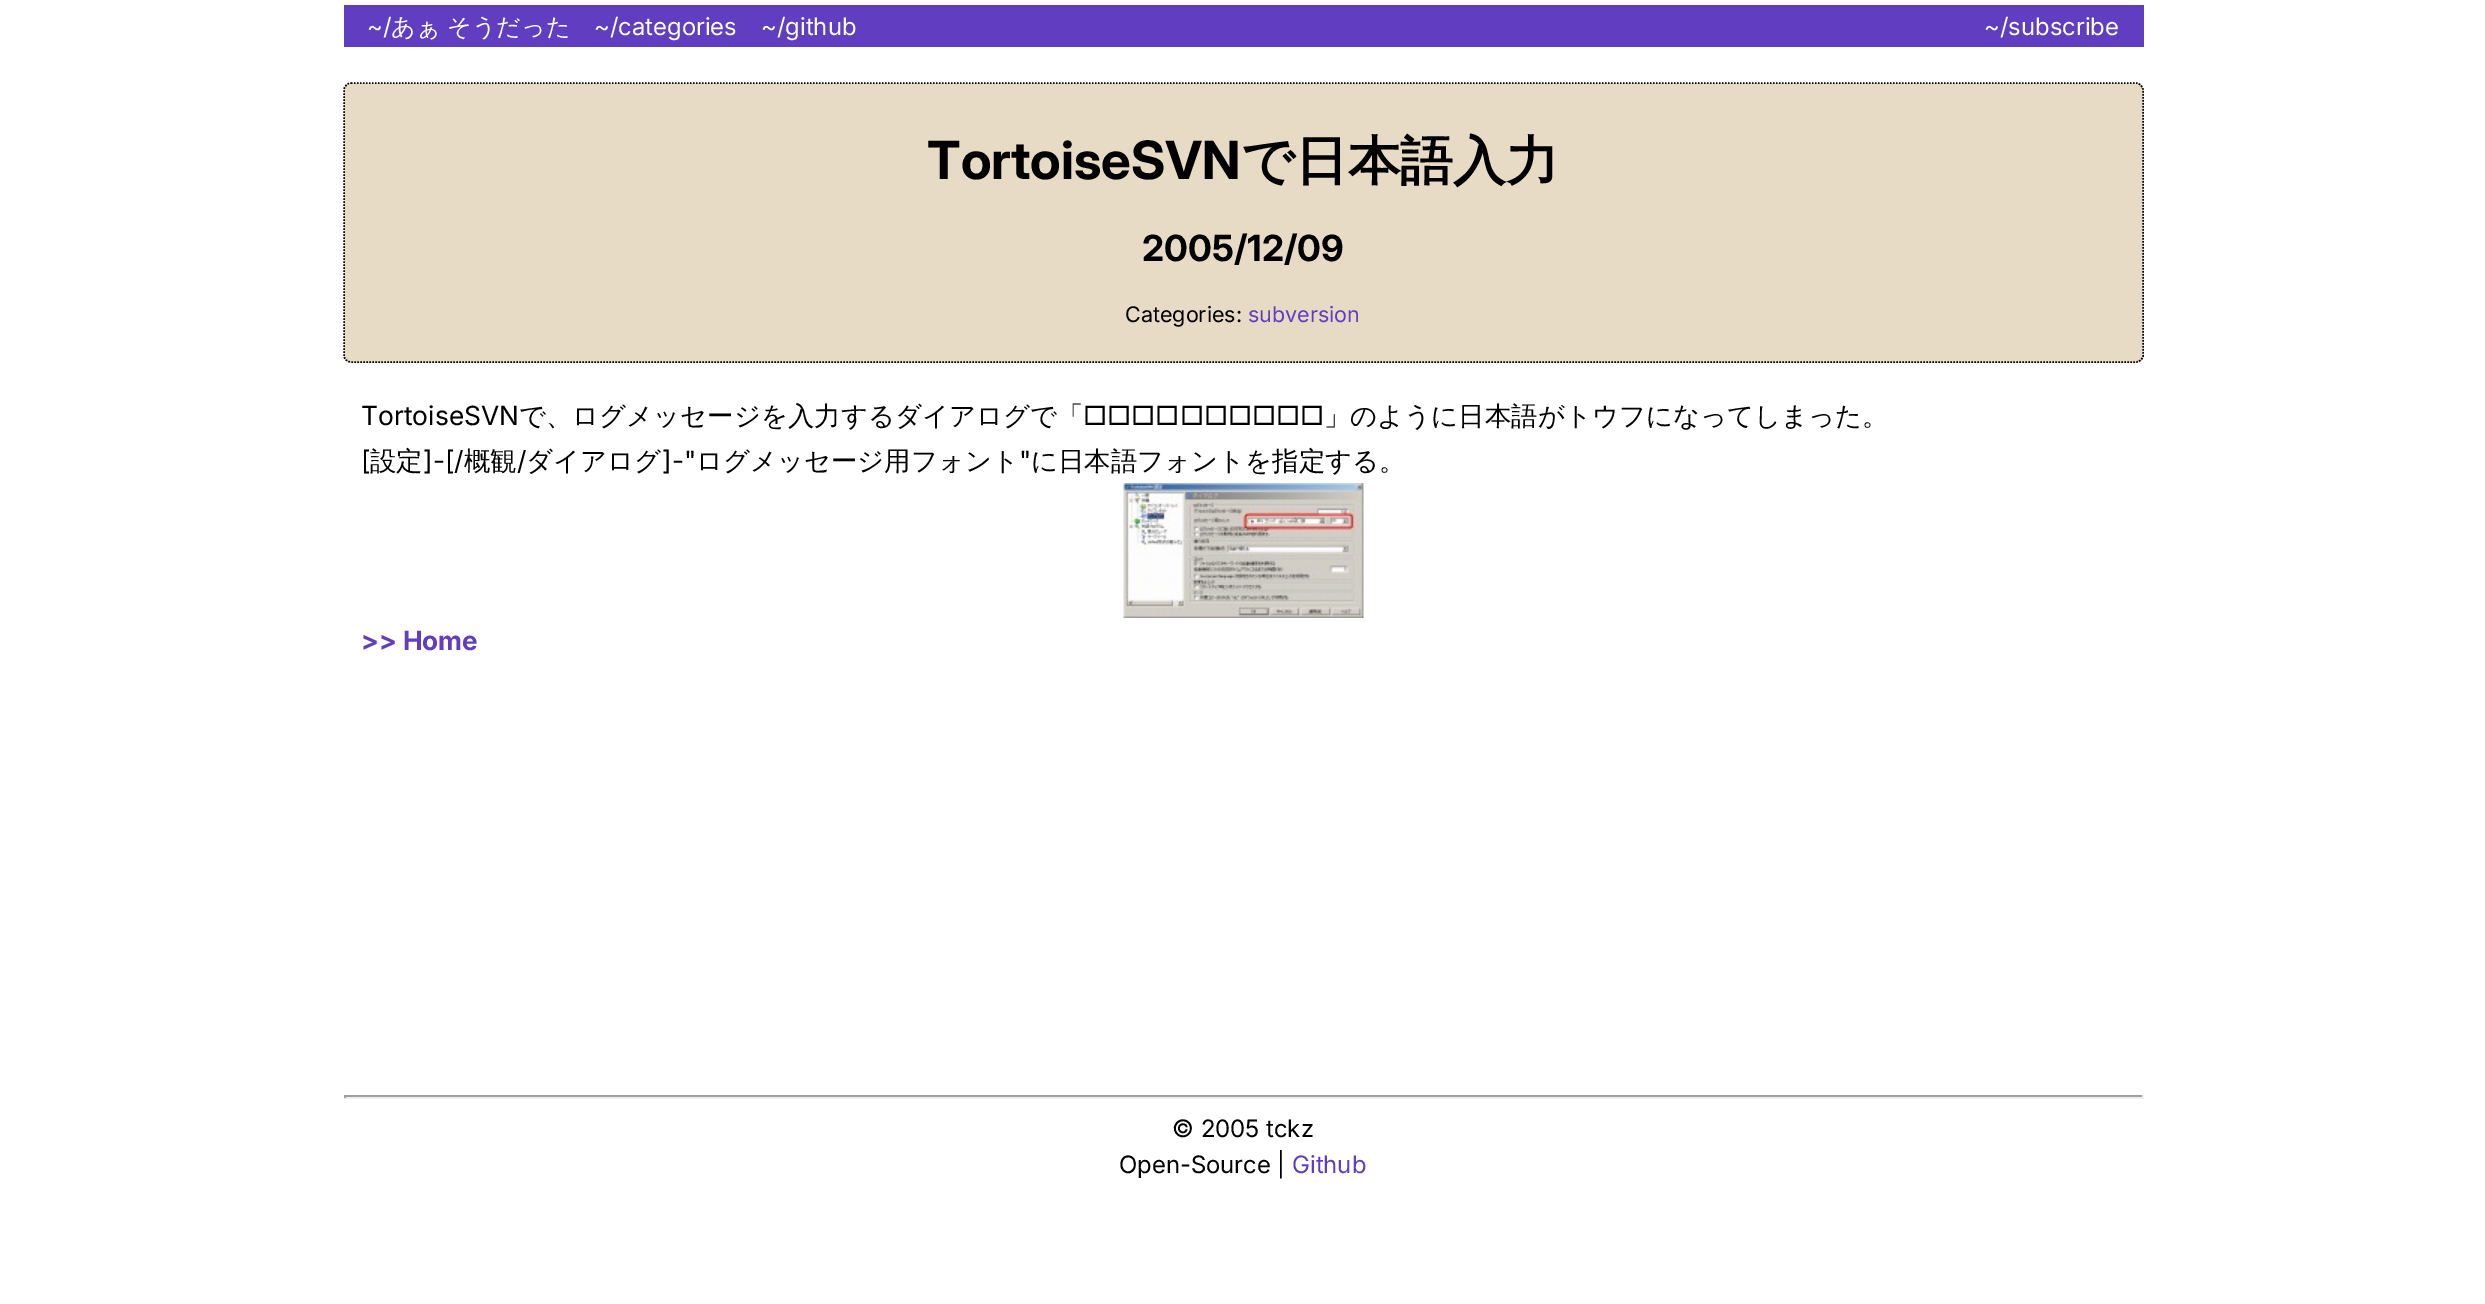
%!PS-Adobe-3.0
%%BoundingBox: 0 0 2485 1304
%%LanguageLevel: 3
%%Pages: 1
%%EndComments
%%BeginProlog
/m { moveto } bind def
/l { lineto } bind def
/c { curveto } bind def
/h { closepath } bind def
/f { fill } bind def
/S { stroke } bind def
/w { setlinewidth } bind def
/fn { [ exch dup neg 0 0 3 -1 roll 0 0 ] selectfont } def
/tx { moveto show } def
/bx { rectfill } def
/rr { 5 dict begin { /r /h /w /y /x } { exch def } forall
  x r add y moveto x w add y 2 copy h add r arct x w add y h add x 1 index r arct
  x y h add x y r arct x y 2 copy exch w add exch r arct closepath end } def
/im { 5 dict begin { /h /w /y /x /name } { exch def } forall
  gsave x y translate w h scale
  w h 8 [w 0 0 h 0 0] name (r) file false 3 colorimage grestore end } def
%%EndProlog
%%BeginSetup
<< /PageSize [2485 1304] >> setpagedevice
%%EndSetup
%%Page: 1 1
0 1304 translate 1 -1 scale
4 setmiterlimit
1 setgray
0 0 2485 1304 bx
0.38 0.239 0.757 setrgbcolor
344 5 1800 42 bx
/Inter-Regular 24 fn
1 setgray
(~/) 367 35 tx
/WenQuanYiZenHei-Medium 24 fn
(あぁ そうだった) 391 35 tx
/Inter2-Regular 24 fn
(~/categories) 594 35 tx
(~/github) 761 35 tx
(~/subscribe) 1984 35 tx
0.91 0.859 0.773 setrgbcolor
344 83 1800 280 8 rr f
0 setgray
1.5 w
[1.5 1.5] 0 setdash
351 83 m 2136 83 l 2139.5 83 2143 86.5 2143 90 c 2143 355.5 l 2143 359 2139.5 362 2136 362 c 351 362 l 347.5 362 344 359 344 355.5 c 344 90 l 344 86.5 347.5 83 351 83 c h S
/Inter-Bold 52.75 fn
(TortoiseSVN) 927 179 tx
/WenQuanYiZenHei-Bold 52.75 fn
(で日本語入力) 1241 179 tx
/Inter2-Bold 36 fn
(2005/12/09) 1142 261 tx
/Inter-Regular 21.5 fn
(Categories:) 1125 322 tx
0.38 0.239 0.757 setrgbcolor
(subversion) 1248 322 tx
/Inter-Regular 26.4 fn
0 setgray
(TortoiseSVN) 361 425 tx
/WenQuanYiZenHei-Medium 26.4 fn
(で、ログメッセージを入力するダイアログで「) 519 425 tx
/Inter-Regular 26.4 fn
(□□□□□□□□□□) 1083 425 tx
/WenQuanYiZenHei-Medium 26.4 fn
(」のように日本語がトウフになってしまった。) 1324 425 tx
/Inter-Regular 26.4 fn
([) 361 470 tx
/WenQuanYiZenHei-Medium 26.4 fn
(設定) 370 470 tx
/Inter-Regular 26.4 fn
(]-[/) 423 470 tx
/WenQuanYiZenHei-Medium 26.4 fn
(概観) 464 470 tx
/Inter-Regular 26.4 fn
(/) 517 470 tx
/WenQuanYiZenHei-Medium 26.4 fn
(ダイアログ) 526 470 tx
/Inter-Regular 26.4 fn
(]-") 662 470 tx
/WenQuanYiZenHei-Medium 26.4 fn
(ログメッセージ用フォント) 696 470 tx
/Inter-Regular 26.4 fn
(") 1019 470 tx
/WenQuanYiZenHei-Medium 26.4 fn
(に日本語フォントを指定する。) 1031 470 tx
(image0.raw) 1123 483 241 135 im
/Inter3-Bold 26.4 fn
0.38 0.239 0.757 setrgbcolor
(>> Home) 361 650 tx
0.624 setgray
344 1095 1800 2 bx
0.933 setgray
2142 1095 2 3 bx
344 1097 1800 2 bx
0.624 setgray
344 1095 2 3 bx
/Inter2-Regular 24 fn
0 setgray
(© 2005 tckz) 1172 1137 tx
(Open-Source |) 1119 1173 tx
0.38 0.239 0.757 setrgbcolor
(Github) 1292 1173 tx
showpage
%%EOF
